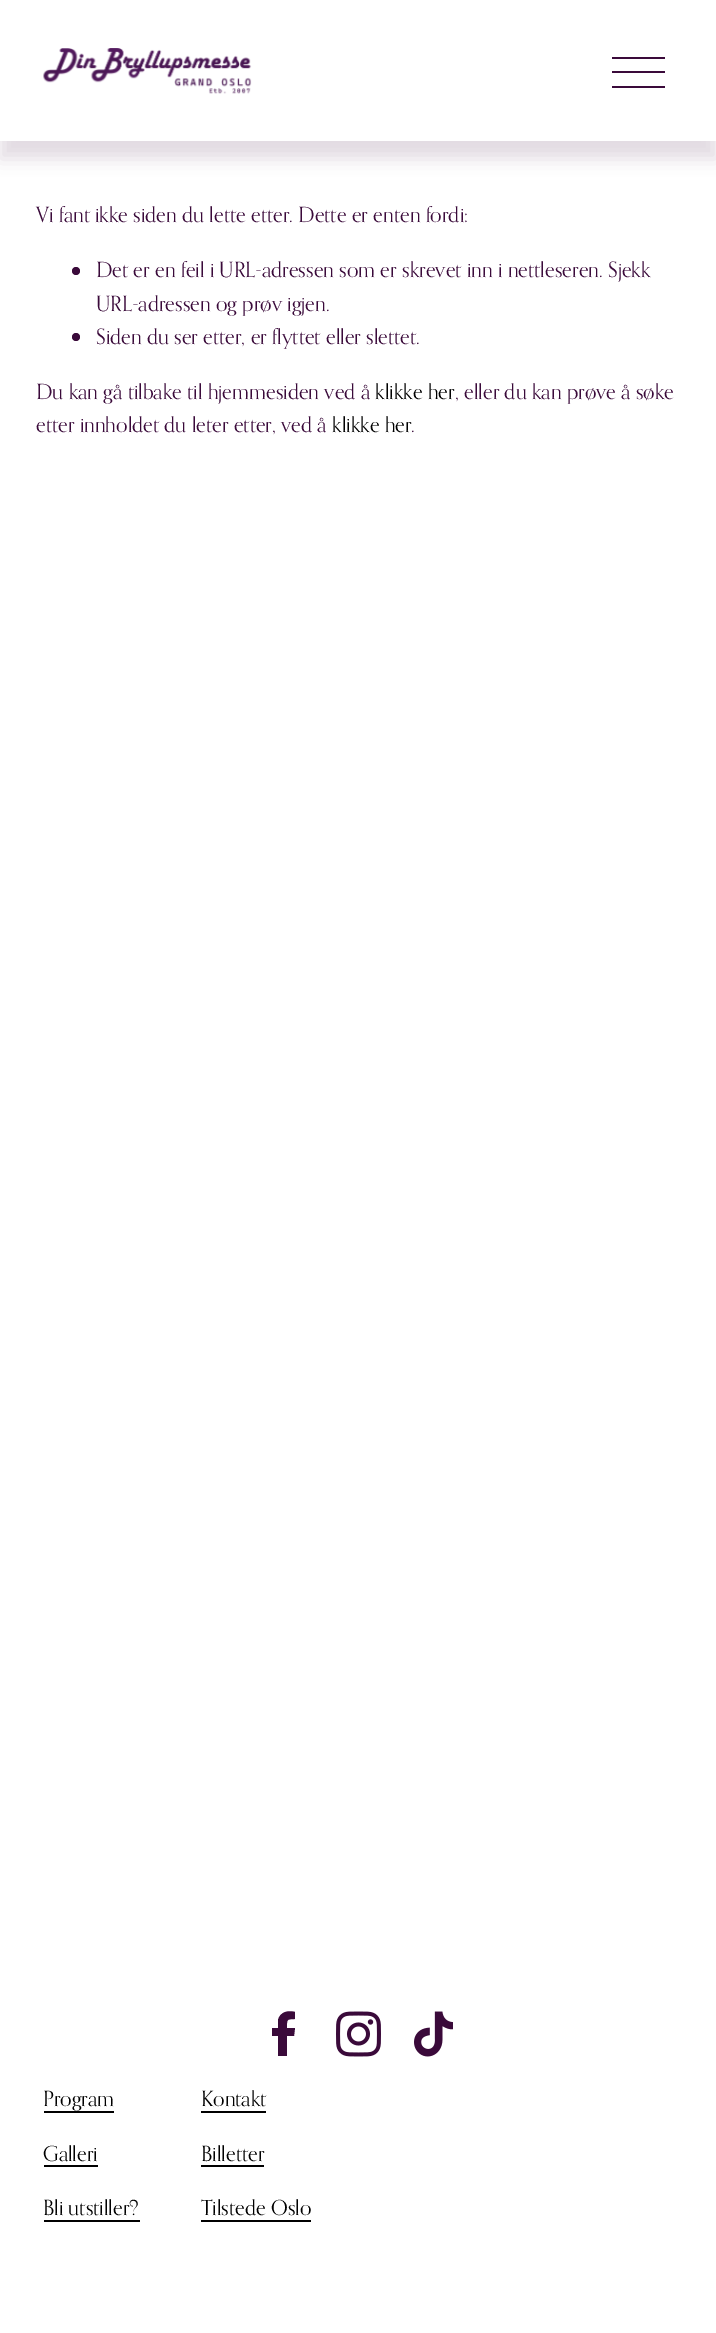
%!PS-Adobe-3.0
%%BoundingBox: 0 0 716 2333
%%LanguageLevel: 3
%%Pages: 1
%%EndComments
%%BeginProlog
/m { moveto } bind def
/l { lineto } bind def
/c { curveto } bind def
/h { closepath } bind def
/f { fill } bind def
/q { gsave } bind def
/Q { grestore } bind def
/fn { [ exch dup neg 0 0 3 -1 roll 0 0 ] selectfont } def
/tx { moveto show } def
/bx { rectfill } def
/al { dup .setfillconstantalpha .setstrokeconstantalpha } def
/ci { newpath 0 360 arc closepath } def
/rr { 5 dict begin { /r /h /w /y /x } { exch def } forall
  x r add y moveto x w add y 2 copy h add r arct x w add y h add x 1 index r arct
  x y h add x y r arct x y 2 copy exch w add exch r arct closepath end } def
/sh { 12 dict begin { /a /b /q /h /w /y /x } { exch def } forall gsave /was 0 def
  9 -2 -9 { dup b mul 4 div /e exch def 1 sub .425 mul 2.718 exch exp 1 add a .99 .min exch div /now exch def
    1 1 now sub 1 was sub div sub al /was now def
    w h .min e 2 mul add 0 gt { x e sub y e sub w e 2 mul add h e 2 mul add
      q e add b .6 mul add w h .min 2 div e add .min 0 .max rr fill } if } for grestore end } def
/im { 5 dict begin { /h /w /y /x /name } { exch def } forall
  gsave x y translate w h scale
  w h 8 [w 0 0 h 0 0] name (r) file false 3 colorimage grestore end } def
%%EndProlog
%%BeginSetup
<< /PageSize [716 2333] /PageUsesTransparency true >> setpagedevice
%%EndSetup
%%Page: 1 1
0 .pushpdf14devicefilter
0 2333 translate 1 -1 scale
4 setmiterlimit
1 setgray
0 0 716 2333 bx
q
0 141 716 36 rectclip
0.882 0.855 0.882 setrgbcolor
0 18 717 141 0 9 1 sh
Q
(image0.raw) 43 48 209 46 im
0.227 0.039 0.227 setrgbcolor
612 57 53 2 bx
612 71 53 2 bx
612 86 53 2 bx
/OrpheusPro-Regular 21 fn
(Vi fant ikke siden du lette etter. Dette er enten fordi:) 36 222 tx
76 271 4 ci f
(Det er en feil i URL-adressen som er skrevet inn i nettleseren. Sjekk) 96 277 tx
(URL-adressen og prøv igjen.) 96 311 tx
76 337 4 ci f
(Siden du ser etter, er flyttet eller slettet.) 96 344 tx
(Du kan gå tilbake til hjemmesiden ved å) 36 399 tx
0 setgray
(klikke her) 375 399 tx
0.227 0.039 0.227 setrgbcolor
(, eller du kan prøve å søke) 455 399 tx
(etter innholdet du leter etter, ved å) 36 432 tx
0 setgray
(klikke her) 332 432 tx
0.227 0.039 0.227 setrgbcolor
(.) 411 432 tx
287 2056 m 287 2036 l 294 2036 l 295 2028 l 287 2028 l 287 2020 286 2019 295 2019 c 295 2012 l 288 2010 280 2012 278 2020 c 278 2028 l 272 2028 l 272 2036 l 278 2036 l 278 2056 l h f
(image1.raw) 336 2011 45 46 im
(image2.raw) 414 2011 39 46 im
0 setgray
(Program) 43 2106 tx
44 2111 70 2 bx
(Galleri) 43 2161 tx
44 2165 54 2 bx
(Bli utstiller?) 43 2215 tx
44 2220 96 2 bx
(Kontakt) 201 2106 tx
201 2111 65 2 bx
(Billetter) 201 2161 tx
201 2165 63 2 bx
(Tilstede Oslo) 201 2215 tx
201 2220 110 2 bx
.poppdf14devicefilter showpage
%%EOF
